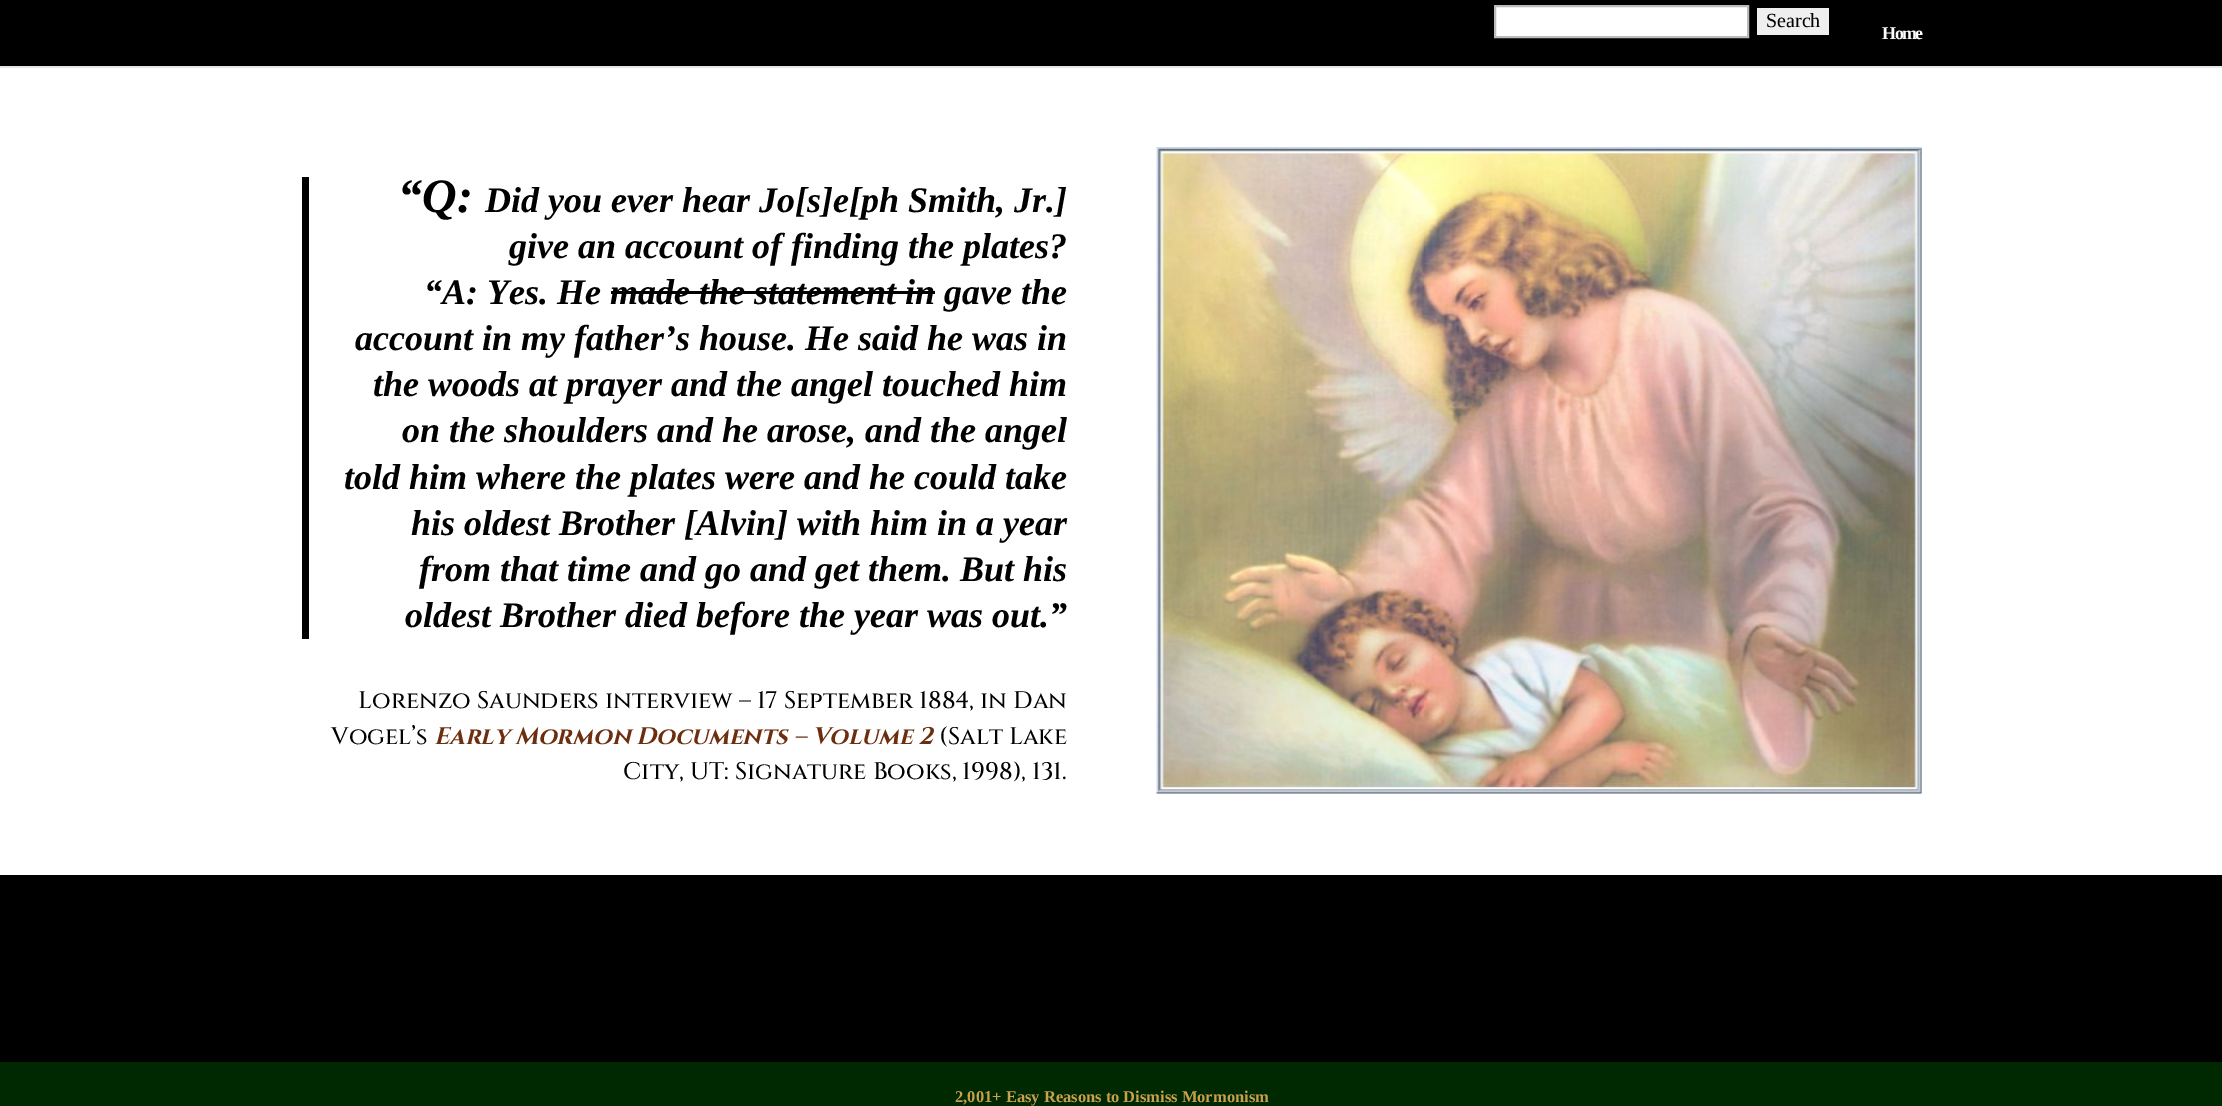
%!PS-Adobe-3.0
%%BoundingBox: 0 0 2222 1106
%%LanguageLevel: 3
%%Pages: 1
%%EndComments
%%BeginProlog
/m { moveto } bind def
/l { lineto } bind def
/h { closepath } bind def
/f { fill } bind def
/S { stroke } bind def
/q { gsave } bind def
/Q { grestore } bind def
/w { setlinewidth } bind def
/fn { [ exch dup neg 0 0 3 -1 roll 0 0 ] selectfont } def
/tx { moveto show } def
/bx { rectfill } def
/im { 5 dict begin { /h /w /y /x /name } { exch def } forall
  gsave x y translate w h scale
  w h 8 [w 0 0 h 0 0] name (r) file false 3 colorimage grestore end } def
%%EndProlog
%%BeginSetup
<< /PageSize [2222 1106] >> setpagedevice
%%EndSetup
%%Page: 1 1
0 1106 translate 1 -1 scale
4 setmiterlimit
1 setgray
0 0 2222 1106 bx
0.902 setgray
0 66 2222 2 bx
0 setgray
0 0 2222 66 bx
1 setgray
1495 6 m 1748 6 l 1748 37 l 1495 37 l h q f Q
0.733 setgray
2 w
S
0.937 setgray
1757 8 72 27 bx
/LiberationSerif-Regular 20 fn
0 setgray
(Search) 1766 27 tx
/LiberationSerif-Bold 18 fn
1 setgray
1882 39 m -1.5 0 (Home) ashow
0 setgray
302 177 7 462 bx
/LiberationSerif-BoldItalic 48 fn
(“Q:) 398 212 tx
/LiberationSerif-BoldItalic 36 fn
(Did you ever hear Jo[s]e[ph Smith, Jr.]) 485 212 tx
(give an account of finding the plates?) 509 258 tx
(“A: Yes. He made the statement in gave the) 424 304 tx
611 291 324 3 bx
(account in my father’s house. He said he was in) 355 350 tx
(the woods at prayer and the angel touched him) 373 396 tx
(on the shoulders and he arose, and the angel) 402 442 tx
(told him where the plates were and he could take) 344 489 tx
(his oldest Brother [Alvin] with him in a year) 411 535 tx
(from that time and go and get them. But his) 419 581 tx
(oldest Brother died before the year was out.”) 405 627 tx
/Cinzel-Medium 24 fn
(Lorenzo Saunders interview – 17 September 1884, in Dan) 358 708 tx
(Vogel’s) 331 744 tx
/Cinzel-BoldItalic 24 fn
0.427 0.18 0.059 setrgbcolor
(Early Mormon Documents – Volume 2) 434 744 tx
/Cinzel-Medium 24 fn
0 setgray
(\(Salt Lake) 939 744 tx
(City, UT: Signature Books, 1998\), 131.) 623 779 tx
(image0.raw) 1156 147 766 647 im
0 875 2222 187 bx
0 0.157 0.004 setrgbcolor
0 1062 2222 44 bx
/LiberationSerif-Bold 16.5 fn
0.792 0.635 0.302 setrgbcolor
(2,001+ Easy Reasons to Dismiss Mormonism) 955 1102 tx
showpage
%%EOF
